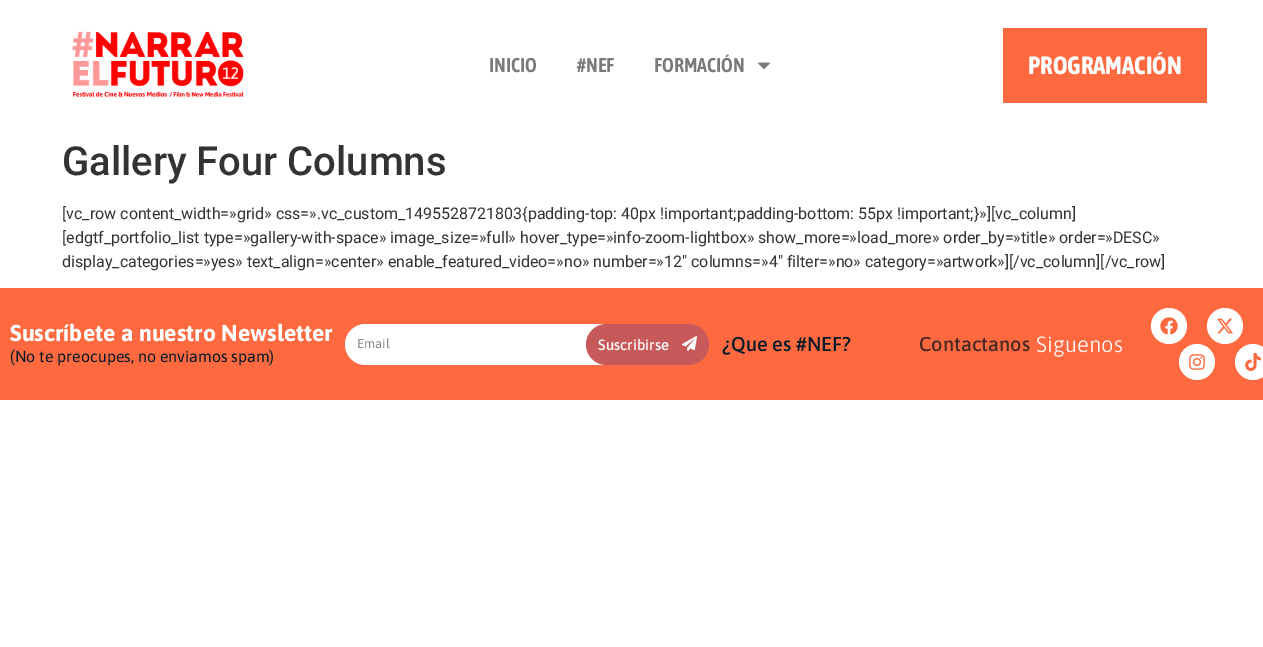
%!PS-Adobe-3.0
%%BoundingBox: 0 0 1263 647
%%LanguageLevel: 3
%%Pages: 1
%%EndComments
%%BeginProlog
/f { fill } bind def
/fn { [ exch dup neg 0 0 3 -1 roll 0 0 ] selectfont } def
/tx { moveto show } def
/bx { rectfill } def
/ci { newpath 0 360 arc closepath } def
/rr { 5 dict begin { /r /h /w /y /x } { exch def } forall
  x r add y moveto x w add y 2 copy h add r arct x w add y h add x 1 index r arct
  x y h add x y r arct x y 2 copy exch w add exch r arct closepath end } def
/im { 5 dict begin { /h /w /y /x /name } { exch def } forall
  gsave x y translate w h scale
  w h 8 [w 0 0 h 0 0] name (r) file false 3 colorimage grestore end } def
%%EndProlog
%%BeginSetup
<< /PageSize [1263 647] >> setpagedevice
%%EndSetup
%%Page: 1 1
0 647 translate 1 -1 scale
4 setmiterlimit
1 setgray
0 0 1263 647 bx
(image0.raw) 72 31 172 67 im
/AsapCondensed-SemiBold 20 fn
0.478 setgray
(INICIO) 489 72 tx
(#NEF) 577 72 tx
(FORMACIÓN) 654 72 tx
(image1.raw) 758 62 12 7 im
1 0.412 0.247 setrgbcolor
1003 28 204 75 bx
/AsapCondensed-Bold 25 fn
1 setgray
(PROGRAMACIÓN) 1028 74 tx
/Roboto-Medium 40 fn
0.2 setgray
(Gallery Four Columns) 62 175 tx
/Roboto-Regular 16 fn
([vc_row content_width=»grid» css=».vc_custom_1495528721803{padding-top: 40px !important;padding-bottom: 55px !important;}»][vc_column]) 62 219 tx
([edgtf_portfolio_list type=»gallery-with-space» image_size=»full» hover_type=»info-zoom-lightbox» show_more=»load_more» order_by=»title» order=»DESC») 62 243 tx
(display_categories=»yes» text_align=»center» enable_featured_video=»no» number=»12″ columns=»4″ filter=»no» category=»artwork»][/vc_column][/vc_row]) 62 267 tx
1 0.412 0.247 setrgbcolor
0 288 1263 112 bx
/Asap-Bold 23 fn
1 setgray
(Suscríbete a nuestro Newsletter) 10 341 tx
/Asap-Regular 16 fn
0.004 0.098 0.161 setrgbcolor
(\(No te preocupes, no enviamos spam\)) 10 362 tx
1 setgray
345 324 331 41 20.5 rr f
/Asap-Regular 13 fn
0.533 setgray
(Email) 357 348 tx
0.784 0.349 0.353 setrgbcolor
586 324 123 41 20.5 rr f
/Asap-Medium 15 fn
1 setgray
(Suscribirse) 598 350 tx
(image2.raw) 682 336 15 15 im
/Asap-Medium 20 fn
0.004 0.098 0.161 setrgbcolor
(¿Que es #NEF?) 722 351 tx
0.278 0.157 0.145 setrgbcolor
(Contactanos) 919 351 tx
/Asap-Light 22 fn
1 setgray
(Siguenos) 1036 352 tx
1169 326 18 ci f
(image3.raw) 1160 317 18 18 im
1225 326 18 ci f
(image4.raw) 1217 318 16 16 im
1197 362 18 ci f
(image5.raw) 1189 354 16 16 im
1253 362 18 ci f
(image6.raw) 1245 353 16 18 im
showpage
%%EOF
